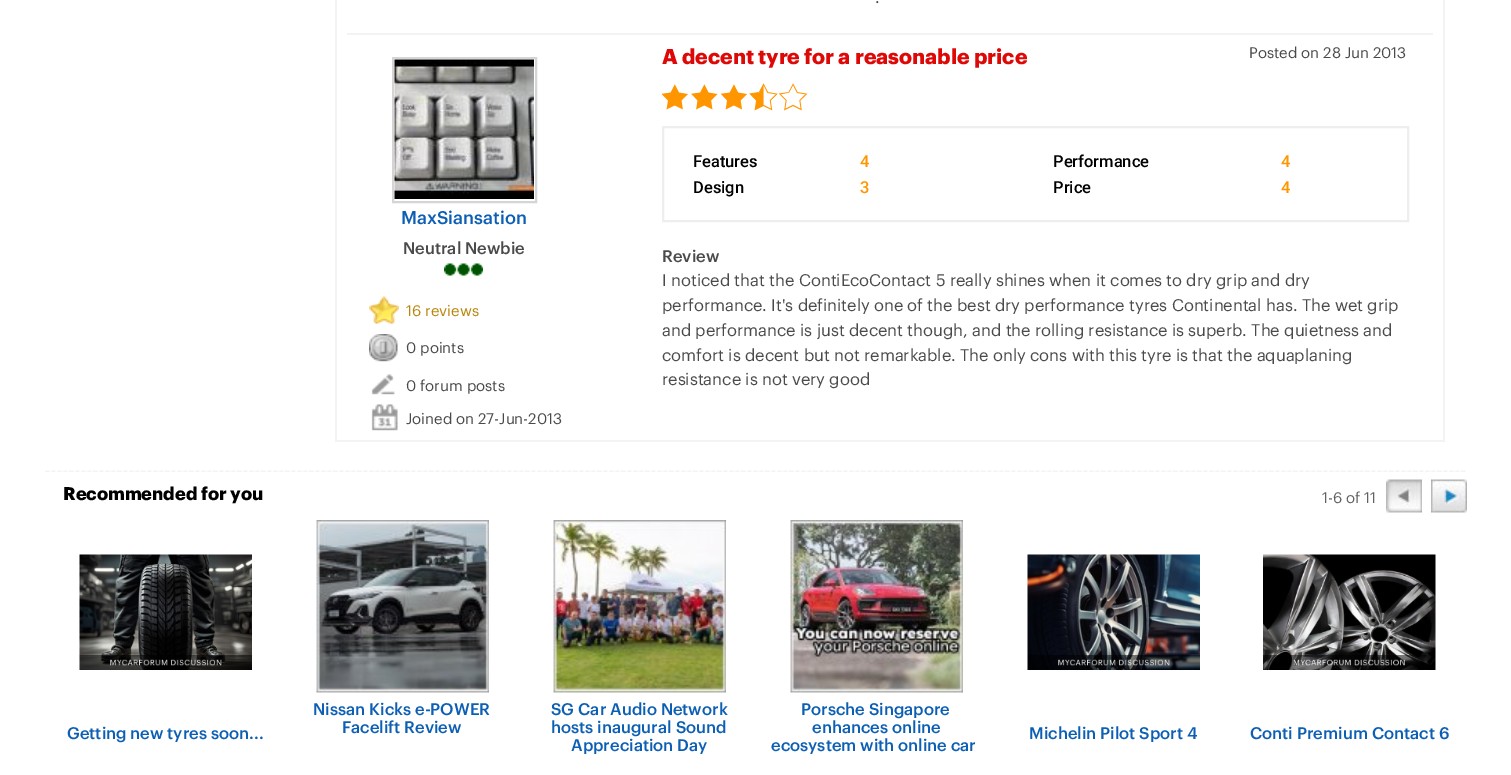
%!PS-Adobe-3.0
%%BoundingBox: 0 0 1511 775
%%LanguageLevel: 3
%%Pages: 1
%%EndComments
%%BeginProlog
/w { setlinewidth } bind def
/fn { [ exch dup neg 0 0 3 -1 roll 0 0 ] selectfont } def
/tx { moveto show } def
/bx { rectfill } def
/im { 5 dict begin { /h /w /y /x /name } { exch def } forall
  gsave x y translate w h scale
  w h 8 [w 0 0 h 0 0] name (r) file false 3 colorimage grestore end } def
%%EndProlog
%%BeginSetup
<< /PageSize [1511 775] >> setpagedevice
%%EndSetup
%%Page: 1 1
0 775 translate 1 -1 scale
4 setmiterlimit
1 setgray
0 0 1511 775 bx
0.953 setgray
1443 0 2 441 bx
335 440 1110 2 bx
335 0 2 441 bx
/Graphik-Regular 16.5 fn
0.29 setgray
(.) 875 3 tx
0.953 setgray
347 33 1086 2 bx
0.835 setgray
2 w
393 58 143 144 rectstroke
(image0.raw) 394 59 140 140 im
/Graphik-Medium 18 fn
0.047 0.373 0.706 setrgbcolor
(MaxSiansation) 401 224 tx
/Graphik-Medium 16.5 fn
0.29 setgray
(Neutral Newbie) 403 254 tx
(image1.raw) 444 263 39 13 im
(image2.raw) 369 296 30 28 im
/Graphik-Regular 15 fn
0.725 0.525 0.043 setrgbcolor
(16 reviews) 406 316 tx
(image3.raw) 369 334 29 28 im
0.29 setgray
(0 points) 406 353 tx
(image4.raw) 371 374 24 21 im
(0 forum posts) 406 391 tx
(image5.raw) 371 404 27 27 im
(Joined on 27-Jun-2013) 406 424 tx
/Graphik-Bold 21 fn
0.871 0.031 0.027 setrgbcolor
(A decent tyre for a reasonable price) 662 64 tx
/Graphik-Regular 15 fn
0.29 setgray
(Posted on 28 Jun 2013) 1249 58 tx
(image6.raw) 662 83 146 28 im
0.933 setgray
663 127 745 94 rectstroke
/Roboto-Medium 16.5 fn
0 setgray
(Features) 693 167 tx
1 0.588 0 setrgbcolor
(4) 860 167 tx
0 setgray
(Performance) 1053 167 tx
1 0.588 0 setrgbcolor
(4) 1281 167 tx
0 setgray
(Design) 693 193 tx
1 0.588 0 setrgbcolor
(3) 860 193 tx
0 setgray
(Price) 1053 193 tx
1 0.588 0 setrgbcolor
(4) 1281 193 tx
/Graphik-Medium 16.5 fn
0.29 setgray
(Review) 662 262 tx
/Graphik-Regular 16.5 fn
(I noticed that the ContiEcoContact 5 really shines when it comes to dry grip and dry) 662 286 tx
(performance. It's definitely one of the best dry performance tyres Continental has. The wet grip) 662 311 tx
(and performance is just decent though, and the rolling resistance is superb. The quietness and) 662 336 tx
(comfort is decent but not remarkable. The only cons with this tyre is that the aquaplaning) 662 361 tx
(resistance is not very good) 662 385 tx
(image7.raw) 45 470 1421 2 im
/Graphik-Bold 18 fn
0 setgray
(Recommended for you) 63 500 tx
/Graphik-Regular 15 fn
0.38 setgray
(1-6 of 11) 1322 503 tx
(image8.raw) 1386 479 36 34 im
(image9.raw) 1431 479 36 34 im
(image10.raw) 79 554 173 116 im
/Graphik-Medium 16.5 fn
0.047 0.373 0.706 setrgbcolor
(Getting new tyres soon...) 67 739 tx
(image11.raw) 316 520 173 173 im
(Nissan Kicks e-POWER) 313 715 tx
(Facelift Review) 342 733 tx
(image12.raw) 553 520 173 173 im
(SG Car Audio Network) 551 715 tx
(hosts inaugural Sound) 551 733 tx
(Appreciation Day) 571 751 tx
(image13.raw) 790 520 173 173 im
(Porsche Singapore) 801 715 tx
(enhances online) 812 733 tx
(ecosystem with online car) 771 751 tx
(image14.raw) 1027 554 173 116 im
(Michelin Pilot Sport 4) 1029 739 tx
(image15.raw) 1263 554 173 116 im
(Conti Premium Contact 6) 1250 739 tx
showpage
%%EOF
